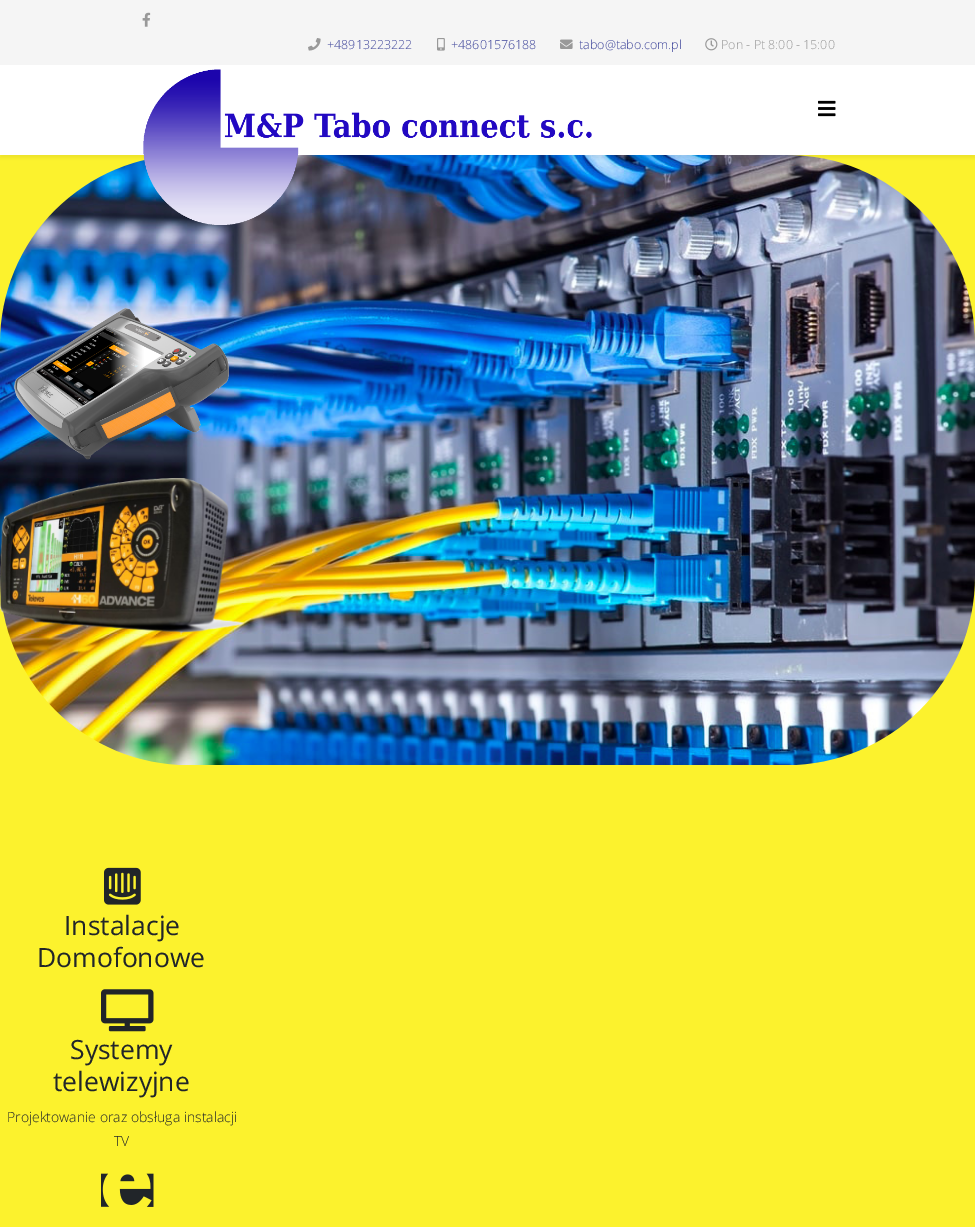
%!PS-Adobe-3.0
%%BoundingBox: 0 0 975 1227
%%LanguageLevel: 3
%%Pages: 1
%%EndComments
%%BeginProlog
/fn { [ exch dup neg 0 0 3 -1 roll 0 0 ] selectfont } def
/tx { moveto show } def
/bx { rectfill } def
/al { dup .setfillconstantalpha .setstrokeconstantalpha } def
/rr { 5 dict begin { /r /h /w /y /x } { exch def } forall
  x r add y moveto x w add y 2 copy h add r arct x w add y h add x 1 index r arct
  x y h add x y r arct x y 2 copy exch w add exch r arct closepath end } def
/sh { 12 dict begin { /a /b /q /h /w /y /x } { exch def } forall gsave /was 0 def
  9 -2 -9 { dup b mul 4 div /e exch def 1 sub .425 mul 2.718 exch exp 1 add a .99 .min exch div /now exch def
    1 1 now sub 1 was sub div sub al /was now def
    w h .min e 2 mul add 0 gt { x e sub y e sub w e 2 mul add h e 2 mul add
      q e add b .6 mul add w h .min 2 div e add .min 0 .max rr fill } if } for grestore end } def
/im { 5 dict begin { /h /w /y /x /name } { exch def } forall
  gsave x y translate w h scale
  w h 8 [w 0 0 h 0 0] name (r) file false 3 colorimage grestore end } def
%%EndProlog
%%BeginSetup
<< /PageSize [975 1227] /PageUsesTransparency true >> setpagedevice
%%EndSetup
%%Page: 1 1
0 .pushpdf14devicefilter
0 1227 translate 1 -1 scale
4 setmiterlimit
0.988 0.949 0.176 setrgbcolor
0 0 975 1227 bx
0.961 setgray
0 0 975 65 bx
(image0.raw) 142 12 9 15 im
(image1.raw) 308 38 13 13 im
/OpenSans-Light 12.5 fn
0.239 0.267 0.604 setrgbcolor
(+48913223222) 327 49 tx
(image2.raw) 437 38 8 13 im
(+48601576188) 451 49 tx
(image3.raw) 560 39 13 10 im
(tabo@tabo.com.pl) 579 49 tx
(image4.raw) 705 38 13 13 im
0.6 setgray
(Pon - Pt 8:00 - 15:00) 721 49 tx
(image7.raw) 0 155 975 610 im
0 setgray
0 68 975 90 0 1.5 0.05 sh
1 setgray
0 65 975 90 bx
(image5.raw) 143 69 449 156 im
(image6.raw) 818 100 18 17 im
(image8.raw) 14 308 215 152 im
(image9.raw) 0 478 244 157 im
(image10.raw) 104 867 37 38 im
/OpenSans-Regular 26.5 fn
0.129 0.145 0.161 setrgbcolor
(Instalacje) 64 935 tx
(Domofonowe) 37 967 tx
(image11.raw) 101 989 53 43 im
(Systemy) 70 1059 tx
(telewizyjne) 53 1091 tx
/OpenSans-Light 14 fn
(Projektowanie oraz obsługa instalacji) 7 1122 tx
(TV) 114 1146 tx
(image12.raw) 101 1173 53 34 im
.poppdf14devicefilter showpage
%%EOF
